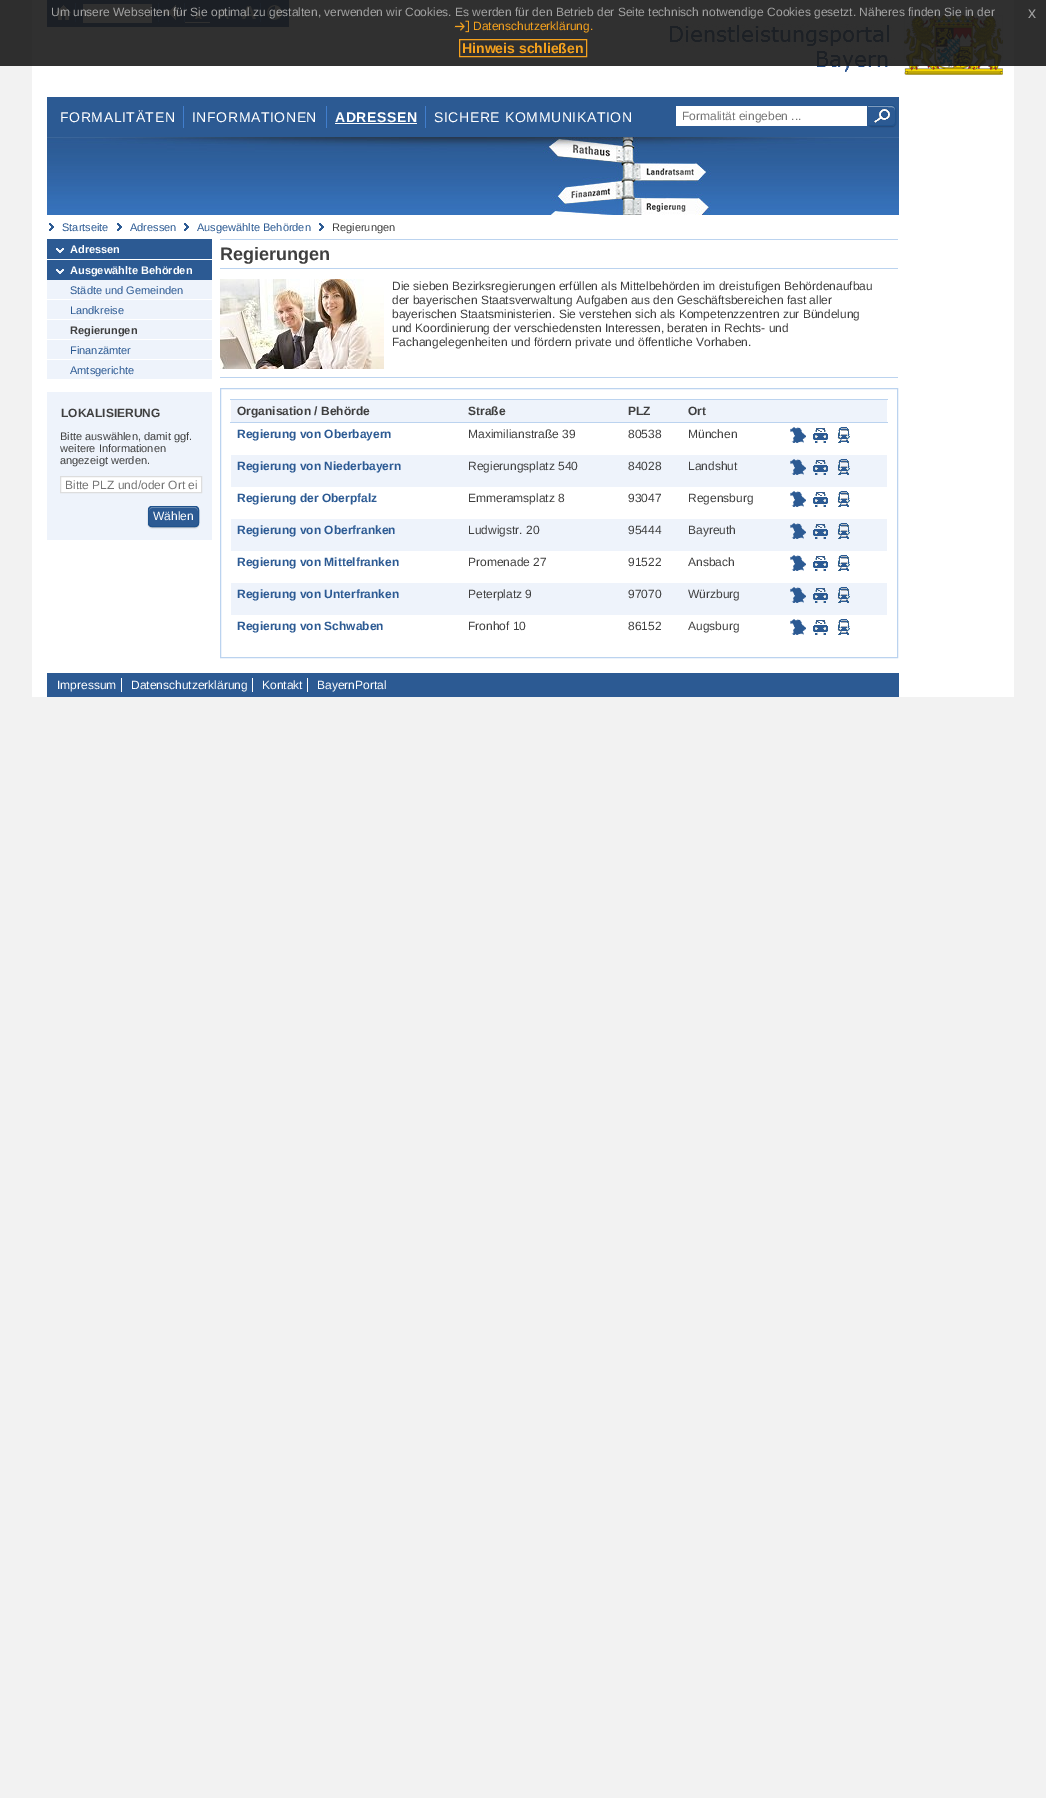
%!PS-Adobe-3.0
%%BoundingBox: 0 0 1046 1798
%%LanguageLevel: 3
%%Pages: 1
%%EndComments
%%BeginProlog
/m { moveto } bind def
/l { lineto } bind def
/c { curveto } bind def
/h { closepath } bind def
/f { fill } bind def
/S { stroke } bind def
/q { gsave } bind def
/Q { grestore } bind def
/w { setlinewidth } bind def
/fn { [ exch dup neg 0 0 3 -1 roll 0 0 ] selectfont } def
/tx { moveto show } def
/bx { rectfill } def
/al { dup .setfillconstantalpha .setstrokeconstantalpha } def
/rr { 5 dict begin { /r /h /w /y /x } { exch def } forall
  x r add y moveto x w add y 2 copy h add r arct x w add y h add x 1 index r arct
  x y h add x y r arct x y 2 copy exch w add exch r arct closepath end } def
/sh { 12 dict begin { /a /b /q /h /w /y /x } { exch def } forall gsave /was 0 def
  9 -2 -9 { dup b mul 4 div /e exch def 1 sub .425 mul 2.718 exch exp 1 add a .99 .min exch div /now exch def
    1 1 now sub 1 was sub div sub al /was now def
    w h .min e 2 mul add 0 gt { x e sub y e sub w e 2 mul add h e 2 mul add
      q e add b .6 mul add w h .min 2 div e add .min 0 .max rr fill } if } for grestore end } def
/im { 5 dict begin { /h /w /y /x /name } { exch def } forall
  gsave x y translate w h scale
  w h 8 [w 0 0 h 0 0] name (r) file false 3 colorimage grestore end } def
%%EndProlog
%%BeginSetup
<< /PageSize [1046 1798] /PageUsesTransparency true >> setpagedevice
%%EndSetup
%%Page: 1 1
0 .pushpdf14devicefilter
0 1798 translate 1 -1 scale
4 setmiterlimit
0.949 setgray
0 0 1046 1798 bx
1 setgray
32 0 982 697 bx
0.173 0.353 0.576 setrgbcolor
47 0 242 27 bx
0.255 0.494 0.804 setrgbcolor
75 3 1 19 bx
(image1.raw) 56 5 15 15 im
158 3 1 19 bx
1 setgray
83 4 69 19 bx
0 setgray
2 w
139.5 11.5 m 143.5 15.5 l 147.5 11.5 l S
0.255 0.494 0.804 setrgbcolor
184 3 1 19 bx
(image2.raw) 165 5 15 15 im
1 setgray
185 22 25 1 bx
(image3.raw) 195 12 7 7 im
(image4.raw) 218 9 11 10 im
0.255 0.494 0.804 setrgbcolor
260 3 1 19 bx
(image5.raw) 242 6 14 13 im
(image6.raw) 267 5 15 15 im
(image7.raw) 670 15 333 60 im
0.9 al
0.098 setgray
0 0 1046 66 bx
/LiberationSans-Regular 12 fn
1 al
0.635 setgray
(Um unsere Webseiten für Sie optimal zu gestalten, verwenden wir Cookies. Es werden für den Betrieb der Seite technisch notwendige Cookies gesetzt. Näheres finden Sie in der) 51 16 tx
(image0.raw) 454 20 15 13 im
0.965 0.635 0.114 setrgbcolor
(Datenschutzerklärung.) 473 30 tx
/LiberationSans-Regular 16 fn
0.635 setgray
(x) 1028 18 tx
0.965 0.635 0.114 setrgbcolor
1 w
459.5 39.5 127 17 rectstroke
/LiberationSans-Bold 14 fn
(Hinweis schließen) 462 53 tx
0.173 0.353 0.576 setrgbcolor
47 97 852 40 bx
0.255 0.494 0.804 setrgbcolor
183 106 1 22 bx
/LiberationSans-Regular 14 fn
1 setgray
60 122 m 0.6 0 (FORMALITÄTEN) ashow
0.255 0.494 0.804 setrgbcolor
326 106 1 22 bx
1 setgray
192 122 m 0.6 0 (INFORMATIONEN) ashow
0.255 0.494 0.804 setrgbcolor
425 106 1 22 bx
/LiberationSans-Bold 14 fn
1 setgray
335 122 m 0.6 0 (ADRESSEN) ashow
335 123 82 1 bx
/LiberationSans-Regular 14 fn
434 122 m 0.6 0 (SICHERE KOMMUNIKATION) ashow
676 106 191 20 bx
/LiberationSans-Regular 12 fn
0.459 setgray
(Formalität eingeben ...) 682 120 tx
0 setgray
868 106 28 21 4 0.5 0.2 sh
0.173 0.353 0.576 setrgbcolor
868 105 m 892 105 l 894 105 896 107 896 109 c 896 122 l 896 124 894 126 892 126 c 868 126 l h f
0.502 0.612 0.745 setrgbcolor
868 107 m 888 107 l 893.5 107 895 107.5 895 110.5 c 895 109 l 895 107.5 893.5 106 892 106 c 868 106 l h f
0.125 0.325 0.553 setrgbcolor
868 105 m 892 105 l 894 105 896 107 896 109 c 896 122 l 896 124 894 126 892 126 c 868 126 l h 868 106 m 892 106 l 893.5 106 895 107.5 895 109 c 895 122 l 895 123.5 893.5 125 892 125 c 868 125 l h eofill
(image8.raw) 874 109 16 14 im
(image9.raw) 47 137 852 78 im
(image10.raw) 49 223 5 8 im
/LiberationSans-Regular 11 fn
0.173 0.353 0.576 setrgbcolor
(Startseite) 62 231 tx
(image10.raw) 117 223 5 8 im
(Adressen) 130 231 tx
(image10.raw) 184 223 5 8 im
(Ausgewählte Behörden) 197 231 tx
(image10.raw) 319 223 5 8 im
0.247 setgray
(Regierungen) 332 231 tx
0.173 0.353 0.576 setrgbcolor
47 239 165 20 bx
(image11.raw) 56 248 8 5 im
/LiberationSans-Bold 11 fn
1 setgray
(Adressen) 70 253 tx
0.173 0.353 0.576 setrgbcolor
47 260 165 20 bx
(image11.raw) 56 269 8 5 im
1 setgray
(Ausgewählte Behörden) 70 274 tx
0.933 0.953 0.984 setrgbcolor
47 280 165 19 bx
/LiberationSans-Regular 11 fn
0.173 0.353 0.576 setrgbcolor
(Städte und Gemeinden) 70 294 tx
0.933 0.953 0.984 setrgbcolor
47 300 165 19 bx
0.173 0.353 0.576 setrgbcolor
(Landkreise) 70 314 tx
0.933 0.953 0.984 setrgbcolor
47 320 165 19 bx
/LiberationSans-Bold 11 fn
0.247 setgray
(Regierungen) 70 334 tx
0.933 0.953 0.984 setrgbcolor
47 340 165 19 bx
/LiberationSans-Regular 11 fn
0.173 0.353 0.576 setrgbcolor
(Finanzämter) 70 354 tx
0.933 0.953 0.984 setrgbcolor
47 360 165 19 bx
0.173 0.353 0.576 setrgbcolor
(Amtsgerichte) 70 374 tx
0.933 0.953 0.984 setrgbcolor
47 392 165 148 bx
/LiberationSans-Bold 12 fn
0.247 setgray
(LOKALISIERUNG) 61 417 tx
/LiberationSans-Regular 11 fn
(Bitte auswählen, damit ggf.) 60 440 tx
(weitere Informationen) 60 452 tx
(angezeigt werden.) 60 464 tx
1 setgray
60.5 476.5 m 201.5 476.5 l 201.5 492.5 l 60.5 492.5 l h q f Q
0.867 setgray
S
/LiberationSans-Regular 12 fn
0.459 setgray
(Bitte PLZ und/oder Ort ei) 65 489 tx
0 setgray
148 507 51 21 4 0.5 0.2 sh
0.173 0.353 0.576 setrgbcolor
148 506 51 21 4 rr f
0.502 0.612 0.745 setrgbcolor
152 508 m 195 508 l 197 508 198 509 198 511 c 198 505 192 507 188 507 c 159 507 l 155 507 149 505 149 511 c 149 509 150 508 152 508 c h f
0.125 0.325 0.553 setrgbcolor
148.5 506.5 50 20 3.5 rr S
1 setgray
(Wählen) 153 520 tx
0.733 0.827 0.937 setrgbcolor
220 239 678 1 bx
220 268 678 1 bx
/LiberationSans-Bold 18 fn
0.247 setgray
(Regierungen) 220 260 tx
0.733 0.827 0.937 setrgbcolor
220 377 678 1 bx
(image12.raw) 220 279 164 90 im
/LiberationSans-Regular 12 fn
0.247 setgray
(Die sieben Bezirksregierungen erfüllen als Mittelbehörden im dreistufigen Behördenaufbau) 392 290 tx
(der bayerischen Staatsverwaltung Aufgaben aus den Geschäftsbereichen fast aller) 392 304 tx
(bayerischen Staatsministerien. Sie verstehen sich als Kompetenzzentren zur Bündelung) 392 318 tx
(und Koordinierung der verschiedensten Interessen, beraten in Rechts- und) 392 332 tx
(Fachangelegenheiten und fördern private und öffentliche Vorhaben.) 392 346 tx
0.733 0.827 0.937 setrgbcolor
220.5 388.5 677 269 rectstroke
230 399 658 1 bx
230 422 658 1 bx
0.933 0.953 0.984 setrgbcolor
231 400 656 22 bx
/LiberationSans-Bold 12 fn
0.247 setgray
(Organisation / Behörde) 237 415 tx
(Straße) 468 415 tx
(PLZ) 628 415 tx
(Ort) 688 415 tx
0.173 0.353 0.576 setrgbcolor
(Regierung von Oberbayern) 237 438 tx
/LiberationSans-Regular 12 fn
0.247 setgray
(Maximilianstraße 39) 468 438 tx
(80538) 628 438 tx
(München) 688 438 tx
(image13.raw) 790 427 16 16 im
(image14.raw) 813 428 15 15 im
(image15.raw) 837 427 13 16 im
0.933 0.953 0.984 setrgbcolor
231 455 656 32 bx
/LiberationSans-Bold 12 fn
0.173 0.353 0.576 setrgbcolor
(Regierung von Niederbayern) 237 470 tx
/LiberationSans-Regular 12 fn
0.247 setgray
(Regierungsplatz 540) 468 470 tx
(84028) 628 470 tx
(Landshut) 688 470 tx
(image16.raw) 790 459 16 16 im
(image17.raw) 813 460 15 15 im
(image18.raw) 837 459 13 16 im
/LiberationSans-Bold 12 fn
0.173 0.353 0.576 setrgbcolor
(Regierung der Oberpfalz) 237 502 tx
/LiberationSans-Regular 12 fn
0.247 setgray
(Emmeramsplatz 8) 468 502 tx
(93047) 628 502 tx
(Regensburg) 688 502 tx
(image13.raw) 790 491 16 16 im
(image14.raw) 813 492 15 15 im
(image15.raw) 837 491 13 16 im
0.933 0.953 0.984 setrgbcolor
231 519 656 32 bx
/LiberationSans-Bold 12 fn
0.173 0.353 0.576 setrgbcolor
(Regierung von Oberfranken) 237 534 tx
/LiberationSans-Regular 12 fn
0.247 setgray
(Ludwigstr. 20) 468 534 tx
(95444) 628 534 tx
(Bayreuth) 688 534 tx
(image16.raw) 790 523 16 16 im
(image17.raw) 813 524 15 15 im
(image18.raw) 837 523 13 16 im
/LiberationSans-Bold 12 fn
0.173 0.353 0.576 setrgbcolor
(Regierung von Mittelfranken) 237 566 tx
/LiberationSans-Regular 12 fn
0.247 setgray
(Promenade 27) 468 566 tx
(91522) 628 566 tx
(Ansbach) 688 566 tx
(image13.raw) 790 555 16 16 im
(image14.raw) 813 556 15 15 im
(image15.raw) 837 555 13 16 im
0.933 0.953 0.984 setrgbcolor
231 583 656 32 bx
/LiberationSans-Bold 12 fn
0.173 0.353 0.576 setrgbcolor
(Regierung von Unterfranken) 237 598 tx
/LiberationSans-Regular 12 fn
0.247 setgray
(Peterplatz 9) 468 598 tx
(97070) 628 598 tx
(Würzburg) 688 598 tx
(image16.raw) 790 587 16 16 im
(image17.raw) 813 588 15 15 im
(image18.raw) 837 587 13 16 im
/LiberationSans-Bold 12 fn
0.173 0.353 0.576 setrgbcolor
(Regierung von Schwaben) 237 630 tx
/LiberationSans-Regular 12 fn
0.247 setgray
(Fronhof 10) 468 630 tx
(86152) 628 630 tx
(Augsburg) 688 630 tx
(image13.raw) 790 619 16 16 im
(image14.raw) 813 620 15 15 im
(image15.raw) 837 619 13 16 im
0.173 0.353 0.576 setrgbcolor
47 673 852 24 bx
1 setgray
(Impressum) 57 689 tx
121 678 1 14 bx
(Datenschutzerklärung) 131 689 tx
252 678 1 14 bx
(Kontakt) 262 689 tx
307 678 1 14 bx
(BayernPortal) 317 689 tx
.poppdf14devicefilter showpage
%%EOF
